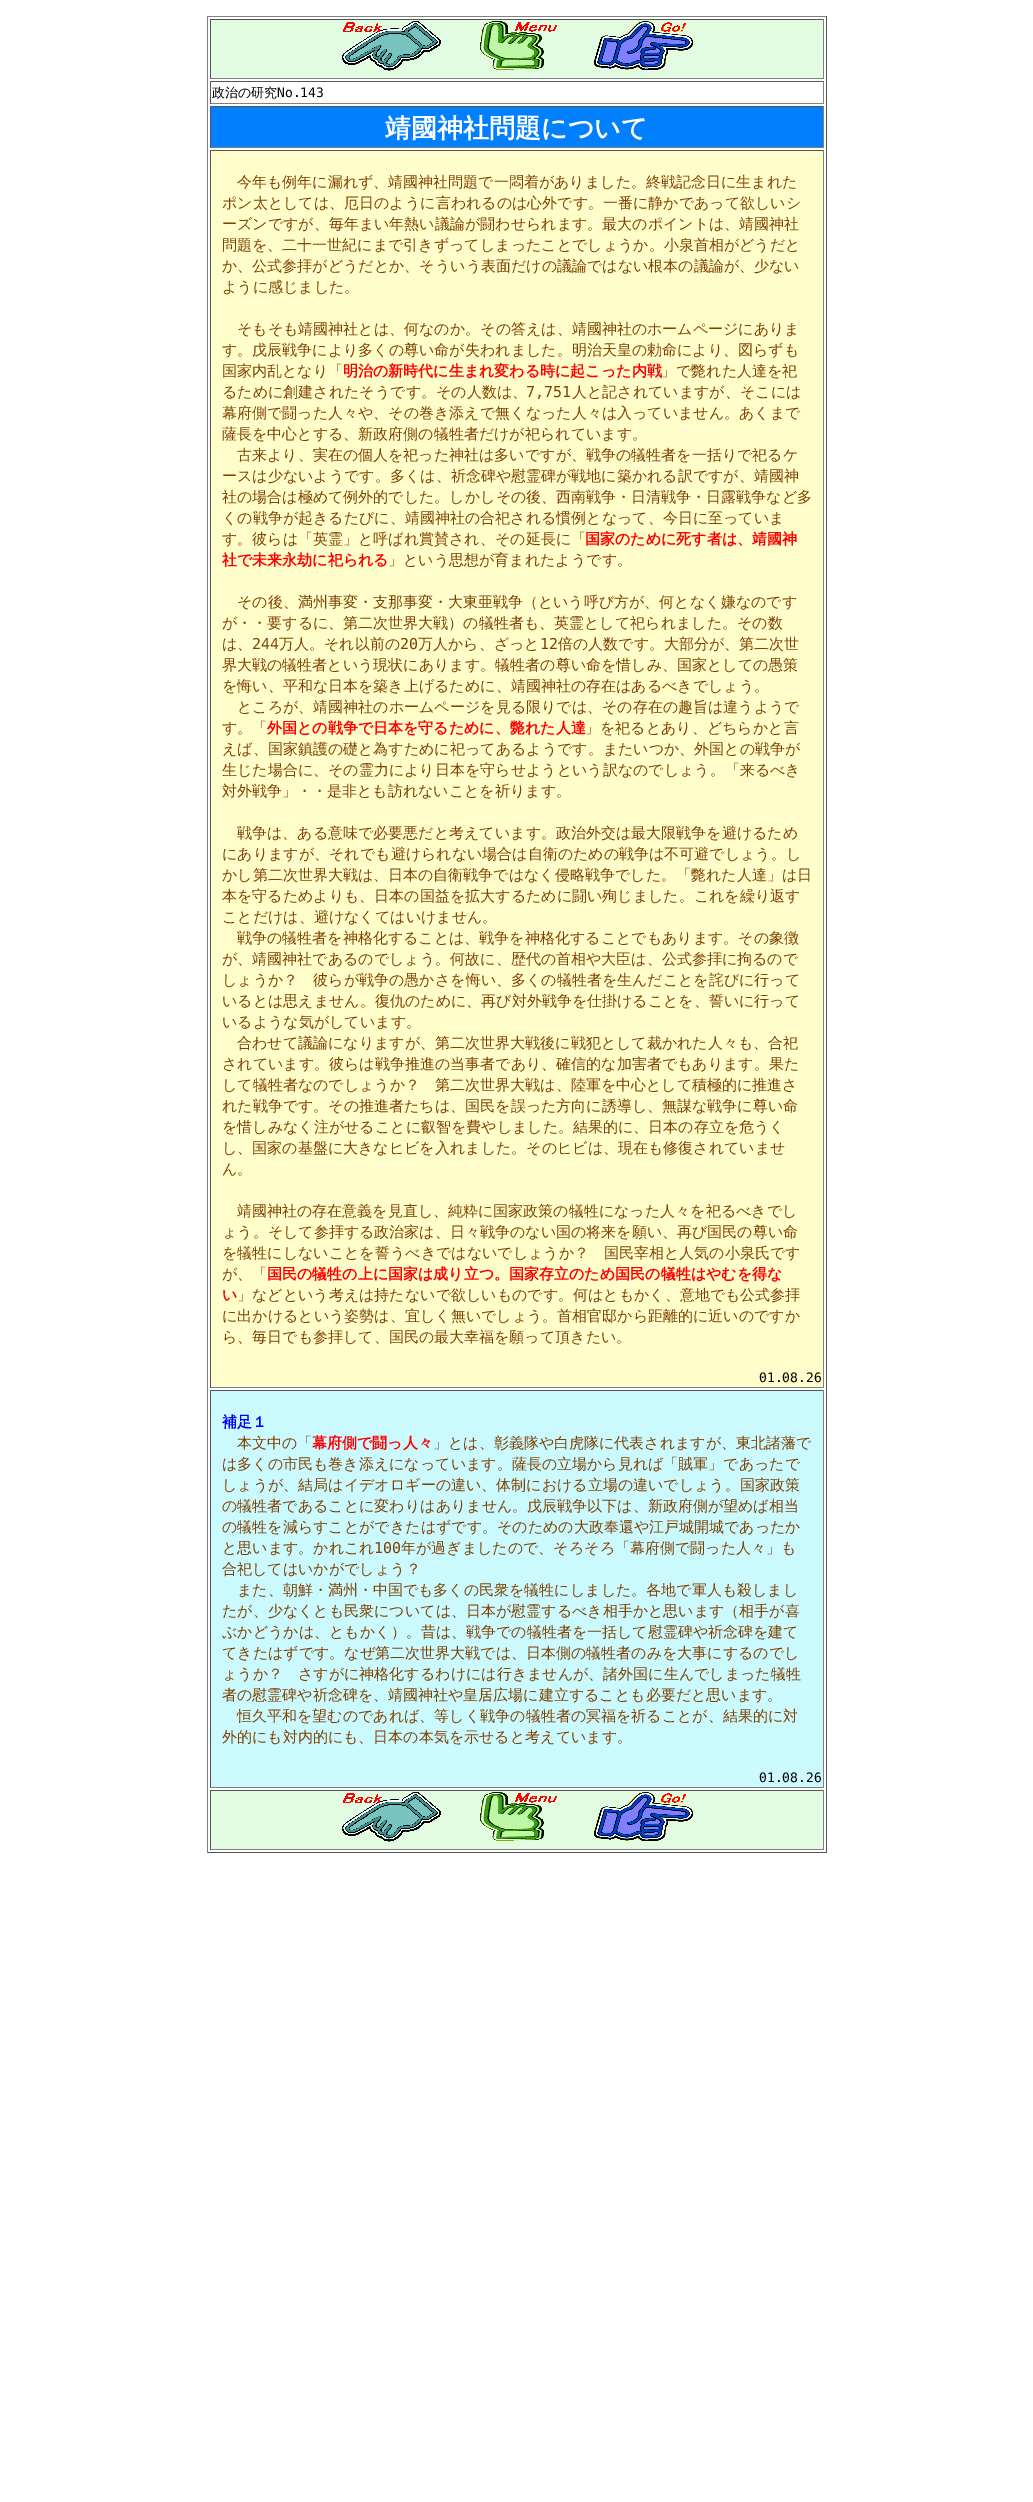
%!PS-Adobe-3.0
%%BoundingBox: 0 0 1033 2502
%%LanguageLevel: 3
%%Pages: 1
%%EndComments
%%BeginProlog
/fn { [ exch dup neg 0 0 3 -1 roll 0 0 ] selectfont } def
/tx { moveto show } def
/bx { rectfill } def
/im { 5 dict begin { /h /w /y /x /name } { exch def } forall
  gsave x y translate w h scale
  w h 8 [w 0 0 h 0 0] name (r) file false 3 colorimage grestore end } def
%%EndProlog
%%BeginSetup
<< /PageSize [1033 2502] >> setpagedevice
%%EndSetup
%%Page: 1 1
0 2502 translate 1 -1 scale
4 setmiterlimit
1 setgray
0 0 1033 2502 bx
0.502 setgray
207 16 620 1 bx
0.333 setgray
826 16 1 1837 bx
207 1852 620 1 bx
0.502 setgray
207 16 1 1837 bx
0.886 0.988 0.886 setrgbcolor
211 20 612 58 bx
0.333 setgray
210 19 614 1 bx
0.502 setgray
823 19 1 60 bx
210 78 614 1 bx
0.333 setgray
210 19 1 60 bx
(image0.raw) 342 21 99 50 im
(image1.raw) 480 21 77 49 im
(image2.raw) 594 21 99 49 im
210 81 614 1 bx
0.502 setgray
823 81 1 23 bx
210 103 614 1 bx
0.333 setgray
210 81 1 23 bx
/WenQuanYiZenHei-Medium 13 fn
0 setgray
(政治の研究) 212 97 tx
/DejaVuSansMono-Regular 13 fn
(No.143) 277 97 tx
0 0.502 1 setrgbcolor
211 107 612 40 bx
0.333 setgray
210 106 614 1 bx
0.502 setgray
823 106 1 42 bx
210 147 614 1 bx
0.333 setgray
210 106 1 42 bx
/WenQuanYiZenHei-Bold 26 fn
1 setgray
(靖國神社問題について) 385 137 tx
1 0.996 0.792 setrgbcolor
211 151 612 1236 bx
0.333 setgray
210 150 614 1 bx
0.502 setgray
823 150 1 1238 bx
210 1387 614 1 bx
0.333 setgray
210 150 1 1238 bx
/WenQuanYiZenHei-Medium 15 fn
0.502 0.251 0 setrgbcolor
(今年も例年に漏れず、靖國神社問題で一悶着がありました。終戦記念日に生まれた) 237 187 tx
(ポン太としては、厄日のように言われるのは心外です。一番に静かであって欲しいシ) 222 208 tx
(ーズンですが、毎年まい年熱い議論が闘わせられます。最大のポイントは、靖國神社) 222 229 tx
(問題を、二十一世紀にまで引きずってしまったことでしょうか。小泉首相がどうだと) 222 250 tx
(か、公式参拝がどうだとか、そういう表面だけの議論ではない根本の議論が、少ない) 222 271 tx
(ように感じました。) 222 292 tx
(そもそも靖國神社とは、何なのか。その答えは、靖國神社のホームページにありま) 237 334 tx
(す。戊辰戦争により多くの尊い命が失われました。明治天皇の勅命により、図らずも) 222 355 tx
(国家内乱となり「) 222 376 tx
/WenQuanYiZenHei-Bold 15 fn
1 0 0 setrgbcolor
(明治の新時代に生まれ変わる時に起こった内戦) 343 376 tx
/WenQuanYiZenHei-Medium 15 fn
0.502 0.251 0 setrgbcolor
(」で斃れた人達を祀) 661 376 tx
(るために創建されたそうです。その人数は、) 222 397 tx
/DejaVuSansMono-Regular 15 fn
(7,751) 526 397 tx
/WenQuanYiZenHei-Medium 15 fn
(人と記されていますが、そこには) 572 397 tx
(幕府側で闘った人々や、その巻き添えで無くなった人々は入っていません。あくまで) 222 418 tx
(薩長を中心とする、新政府側の犠牲者だけが祀られています。) 222 439 tx
(古来より、実在の個人を祀った神社は多いですが、戦争の犠牲者を一括りで祀るケ) 237 460 tx
(ースは少ないようです。多くは、祈念碑や慰霊碑が戦地に築かれる訳ですが、靖國神) 222 481 tx
(社の場合は極めて例外的でした。しかしその後、西南戦争・日清戦争・日露戦争など多) 222 502 tx
(くの戦争が起きるたびに、靖國神社の合祀される慣例となって、今日に至っていま) 222 523 tx
(す。彼らは「英霊」と呼ばれ賞賛され、その延長に「) 222 544 tx
/WenQuanYiZenHei-Bold 15 fn
1 0 0 setrgbcolor
(国家のために死す者は、靖國神) 585 544 tx
(社で未来永劫に祀られる) 222 565 tx
/WenQuanYiZenHei-Medium 15 fn
0.502 0.251 0 setrgbcolor
(」という思想が育まれたようです。) 388 565 tx
(その後、満州事変・支那事変・大東亜戦争（という呼び方が、何となく嫌なのです) 237 607 tx
(が・・要するに、第二次世界大戦）の犠牲者も、英霊として祀られました。その数) 222 628 tx
(は、) 222 649 tx
/DejaVuSansMono-Regular 15 fn
(244) 252 649 tx
/WenQuanYiZenHei-Medium 15 fn
(万人。それ以前の) 279 649 tx
/DejaVuSansMono-Regular 15 fn
(20) 400 649 tx
/WenQuanYiZenHei-Medium 15 fn
(万人から、ざっと) 418 649 tx
/DejaVuSansMono-Regular 15 fn
(12) 540 649 tx
/WenQuanYiZenHei-Medium 15 fn
(倍の人数です。大部分が、第二次世) 558 649 tx
(界大戦の犠牲者という現状にあります。犠牲者の尊い命を惜しみ、国家としての愚策) 222 670 tx
(を悔い、平和な日本を築き上げるために、靖國神社の存在はあるべきでしょう。) 222 691 tx
(ところが、靖國神社のホームページを見る限りでは、その存在の趣旨は違うようで) 237 712 tx
(す。「) 222 733 tx
/WenQuanYiZenHei-Bold 15 fn
1 0 0 setrgbcolor
(外国との戦争で日本を守るために、斃れた人達) 267 733 tx
/WenQuanYiZenHei-Medium 15 fn
0.502 0.251 0 setrgbcolor
(」を祀るとあり、どちらかと言) 585 733 tx
(えば、国家鎮護の礎と為すために祀ってあるようです。またいつか、外国との戦争が) 222 754 tx
(生じた場合に、その霊力により日本を守らせようという訳なのでしょう。「来るべき) 222 775 tx
(対外戦争」・・是非とも訪れないことを祈ります。) 222 796 tx
(戦争は、ある意味で必要悪だと考えています。政治外交は最大限戦争を避けるため) 237 838 tx
(にありますが、それでも避けられない場合は自衛のための戦争は不可避でしょう。し) 222 859 tx
(かし第二次世界大戦は、日本の自衛戦争ではなく侵略戦争でした。「斃れた人達」は日) 222 880 tx
(本を守るためよりも、日本の国益を拡大するために闘い殉じました。これを繰り返す) 222 901 tx
(ことだけは、避けなくてはいけません。) 222 922 tx
(戦争の犠牲者を神格化することは、戦争を神格化することでもあります。その象徴) 237 943 tx
(が、靖國神社であるのでしょう。何故に、歴代の首相や大臣は、公式参拝に拘るので) 222 964 tx
(しょうか？　彼らが戦争の愚かさを悔い、多くの犠牲者を生んだことを詫びに行って) 222 985 tx
(いるとは思えません。復仇のために、再び対外戦争を仕掛けることを、誓いに行って) 222 1006 tx
(いるような気がしています。) 222 1027 tx
(合わせて議論になりますが、第二次世界大戦後に戦犯として裁かれた人々も、合祀) 237 1048 tx
(されています。彼らは戦争推進の当事者であり、確信的な加害者でもあります。果た) 222 1069 tx
(して犠牲者なのでしょうか？　第二次世界大戦は、陸軍を中心として積極的に推進さ) 222 1090 tx
(れた戦争です。その推進者たちは、国民を誤った方向に誘導し、無謀な戦争に尊い命) 222 1111 tx
(を惜しみなく注がせることに叡智を費やしました。結果的に、日本の存立を危うく) 222 1132 tx
(し、国家の基盤に大きなヒビを入れました。そのヒビは、現在も修復されていませ) 222 1153 tx
(ん。) 222 1174 tx
(靖國神社の存在意義を見直し、純粋に国家政策の犠牲になった人々を祀るべきでし) 237 1216 tx
(ょう。そして参拝する政治家は、日々戦争のない国の将来を願い、再び国民の尊い命) 222 1237 tx
(を犠牲にしないことを誓うべきではないでしょうか？　国民宰相と人気の小泉氏です) 222 1258 tx
(が、「) 222 1279 tx
/WenQuanYiZenHei-Bold 15 fn
1 0 0 setrgbcolor
(国民の犠牲の上に国家は成り立つ。国家存立のため国民の犠牲はやむを得な) 267 1279 tx
(い) 222 1300 tx
/WenQuanYiZenHei-Medium 15 fn
0.502 0.251 0 setrgbcolor
(」などという考えは持たないで欲しいものです。何はともかく、意地でも公式参拝) 237 1300 tx
(に出かけるという姿勢は、宜しく無いでしょう。首相官邸から距離的に近いのですか) 222 1321 tx
(ら、毎日でも参拝して、国民の最大幸福を願って頂きたい。) 222 1342 tx
/DejaVuSansMono-Regular 13 fn
0 setgray
(01.08.26) 759 1382 tx
0.796 0.98 0.996 setrgbcolor
211 1391 612 396 bx
0.333 setgray
210 1390 614 1 bx
0.502 setgray
823 1390 1 398 bx
210 1787 614 1 bx
0.333 setgray
210 1390 1 398 bx
/WenQuanYiZenHei-Bold 15 fn
0 0 1 setrgbcolor
(補足１) 222 1427 tx
/WenQuanYiZenHei-Medium 15 fn
0.502 0.251 0 setrgbcolor
(本文中の「) 237 1448 tx
/WenQuanYiZenHei-Bold 15 fn
1 0 0 setrgbcolor
(幕府側で闘っ人々) 312 1448 tx
/WenQuanYiZenHei-Medium 15 fn
0.502 0.251 0 setrgbcolor
(」とは、彰義隊や白虎隊に代表されますが、東北諸藩で) 433 1448 tx
(は多くの市民も巻き添えになっています。薩長の立場から見れば「賊軍」であったで) 222 1469 tx
(しょうが、結局はイデオロギーの違い、体制における立場の違いでしょう。国家政策) 222 1490 tx
(の犠牲者であることに変わりはありません。戊辰戦争以下は、新政府側が望めば相当) 222 1511 tx
(の犠牲を減らすことができたはずです。そのための大政奉還や江戸城開城であったか) 222 1532 tx
(と思います。かれこれ) 222 1553 tx
/DejaVuSansMono-Regular 15 fn
(100) 374 1553 tx
/WenQuanYiZenHei-Medium 15 fn
(年が過ぎましたので、そろそろ「幕府側で闘った人々」も) 401 1553 tx
(合祀してはいかがでしょう？) 222 1574 tx
(また、朝鮮・満州・中国でも多くの民衆を犠牲にしました。各地で軍人も殺しまし) 237 1595 tx
(たが、少なくとも民衆については、日本が慰霊するべき相手かと思います（相手が喜) 222 1616 tx
(ぶかどうかは、ともかく）。昔は、戦争での犠牲者を一括して慰霊碑や祈念碑を建て) 222 1637 tx
(てきたはずです。なぜ第二次世界大戦では、日本側の犠牲者のみを大事にするのでし) 222 1658 tx
(ょうか？　さすがに神格化するわけには行きませんが、諸外国に生んでしまった犠牲) 222 1679 tx
(者の慰霊碑や祈念碑を、靖國神社や皇居広場に建立することも必要だと思います。) 222 1700 tx
(恒久平和を望むのであれば、等しく戦争の犠牲者の冥福を祈ることが、結果的に対) 237 1721 tx
(外的にも対内的にも、日本の本気を示せると考えています。) 222 1742 tx
/DejaVuSansMono-Regular 13 fn
0 setgray
(01.08.26) 759 1782 tx
0.886 0.988 0.886 setrgbcolor
211 1791 612 58 bx
0.333 setgray
210 1790 614 1 bx
0.502 setgray
823 1790 1 60 bx
210 1849 614 1 bx
0.333 setgray
210 1790 1 60 bx
(image0.raw) 342 1792 99 50 im
(image1.raw) 480 1792 77 49 im
(image2.raw) 594 1792 99 49 im
showpage
%%EOF
